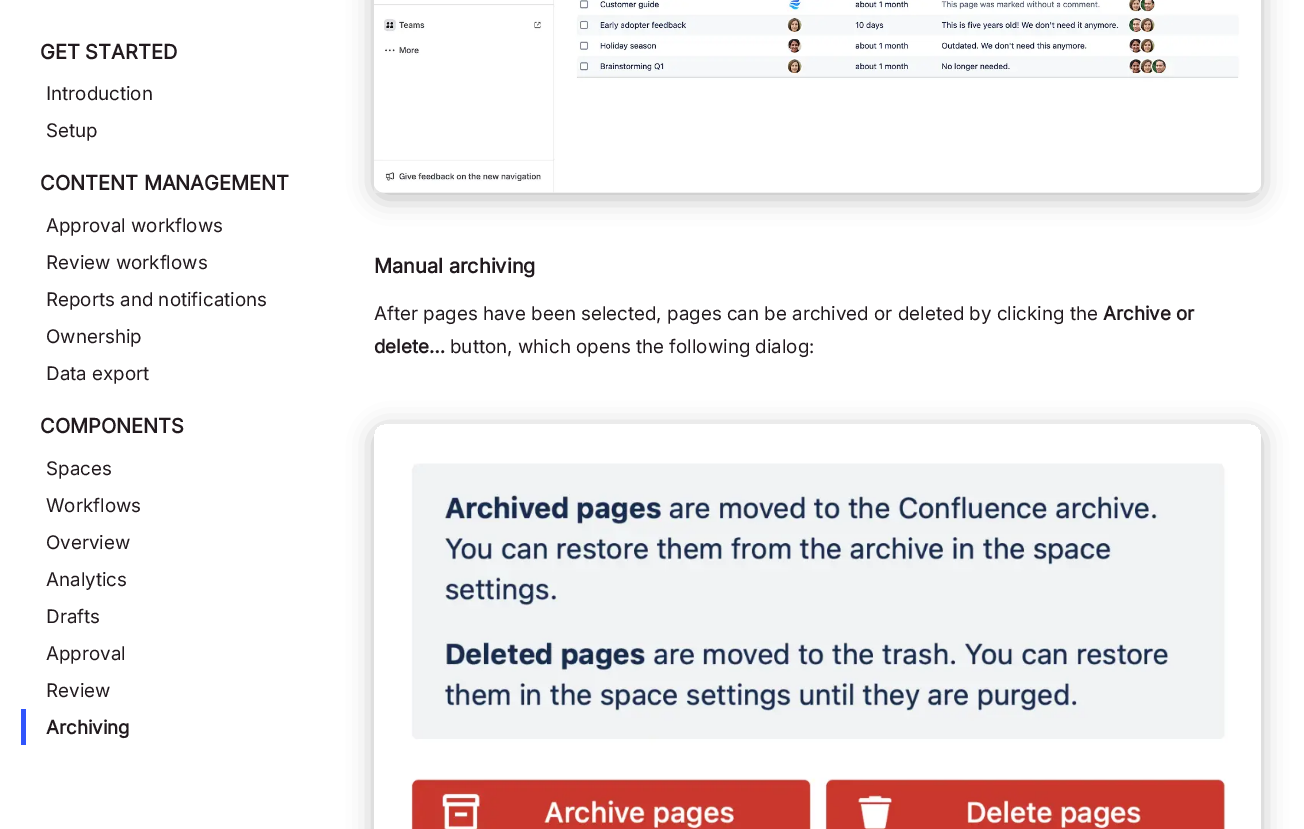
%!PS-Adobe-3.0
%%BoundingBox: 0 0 1304 829
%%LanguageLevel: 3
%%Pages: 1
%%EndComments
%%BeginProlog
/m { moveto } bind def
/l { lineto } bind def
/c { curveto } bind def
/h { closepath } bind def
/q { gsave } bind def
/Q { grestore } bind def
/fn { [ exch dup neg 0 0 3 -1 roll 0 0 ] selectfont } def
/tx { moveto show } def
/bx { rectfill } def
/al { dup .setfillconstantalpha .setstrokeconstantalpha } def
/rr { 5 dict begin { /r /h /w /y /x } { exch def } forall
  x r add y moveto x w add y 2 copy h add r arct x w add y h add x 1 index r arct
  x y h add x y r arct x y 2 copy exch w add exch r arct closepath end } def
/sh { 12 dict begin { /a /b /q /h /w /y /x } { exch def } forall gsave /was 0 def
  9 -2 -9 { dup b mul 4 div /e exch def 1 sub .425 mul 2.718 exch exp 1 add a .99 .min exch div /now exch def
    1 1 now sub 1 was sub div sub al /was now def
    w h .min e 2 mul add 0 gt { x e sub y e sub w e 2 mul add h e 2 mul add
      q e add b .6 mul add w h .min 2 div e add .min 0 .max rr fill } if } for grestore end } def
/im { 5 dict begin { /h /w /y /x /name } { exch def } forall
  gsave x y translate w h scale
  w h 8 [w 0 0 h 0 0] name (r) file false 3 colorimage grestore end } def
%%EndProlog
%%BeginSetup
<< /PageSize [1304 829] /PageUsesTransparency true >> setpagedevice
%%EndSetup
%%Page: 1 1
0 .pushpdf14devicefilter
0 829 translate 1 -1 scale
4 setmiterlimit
1 setgray
0 0 1304 829 bx
/Inter-Bold 20 fn
0.129 0.102 0.118 setrgbcolor
(GET STARTED) 40 59 tx
/Inter-Regular 18.75 fn
(Introduction) 46 100 tx
(Setup) 46 137 tx
/Inter-Bold 20 fn
(CONTENT MANAGEMENT) 40 190 tx
/Inter-Regular 18.75 fn
(Approval workflows) 46 232 tx
(Review workflows) 46 269 tx
(Reports and notifications) 46 306 tx
(Ownership) 46 343 tx
(Data export) 46 380 tx
/Inter-Bold 20 fn
(COMPONENTS) 40 433 tx
/Inter-Regular 18.75 fn
(Spaces) 46 475 tx
(Workflows) 46 512 tx
(Overview) 46 549 tx
(Analytics) 46 586 tx
(Drafts) 46 623 tx
(Approval) 46 660 tx
(Review) 46 697 tx
0.188 0.333 0.988 setrgbcolor
21 709 5 36 bx
/Inter-Bold 18.75 fn
0.129 0.102 0.118 setrgbcolor
(Archiving) 46 734 tx
0 setgray
374 -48 887 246 10 12.5 0.25 sh
(image0.raw) 374 0 887 193 im
/Inter-Bold 20 fn
0.129 0.102 0.118 setrgbcolor
(Manual archiving) 374 273 tx
/Inter-Regular 18.75 fn
(After pages have been selected, pages can be archived or deleted by clicking the) 374 320 tx
/Inter-Bold 18.75 fn
(Archive or) 1103 320 tx
(delete…) 374 353 tx
/Inter-Regular 18.75 fn
(button, which opens the following dialog:) 450 353 tx
q
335 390 m 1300 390 l 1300 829 l 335 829 l h 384 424 m 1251 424 l 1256.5 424 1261 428.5 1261 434 c 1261 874 l 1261 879.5 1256.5 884 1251 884 c 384 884 l 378.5 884 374 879.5 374 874 c 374 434 l 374 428.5 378.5 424 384 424 c h eoclip newpath
0 setgray
374 429 887 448 10 12.5 0.25 sh
Q
(image1.raw) 411 463 817 366 im
.poppdf14devicefilter showpage
%%EOF
